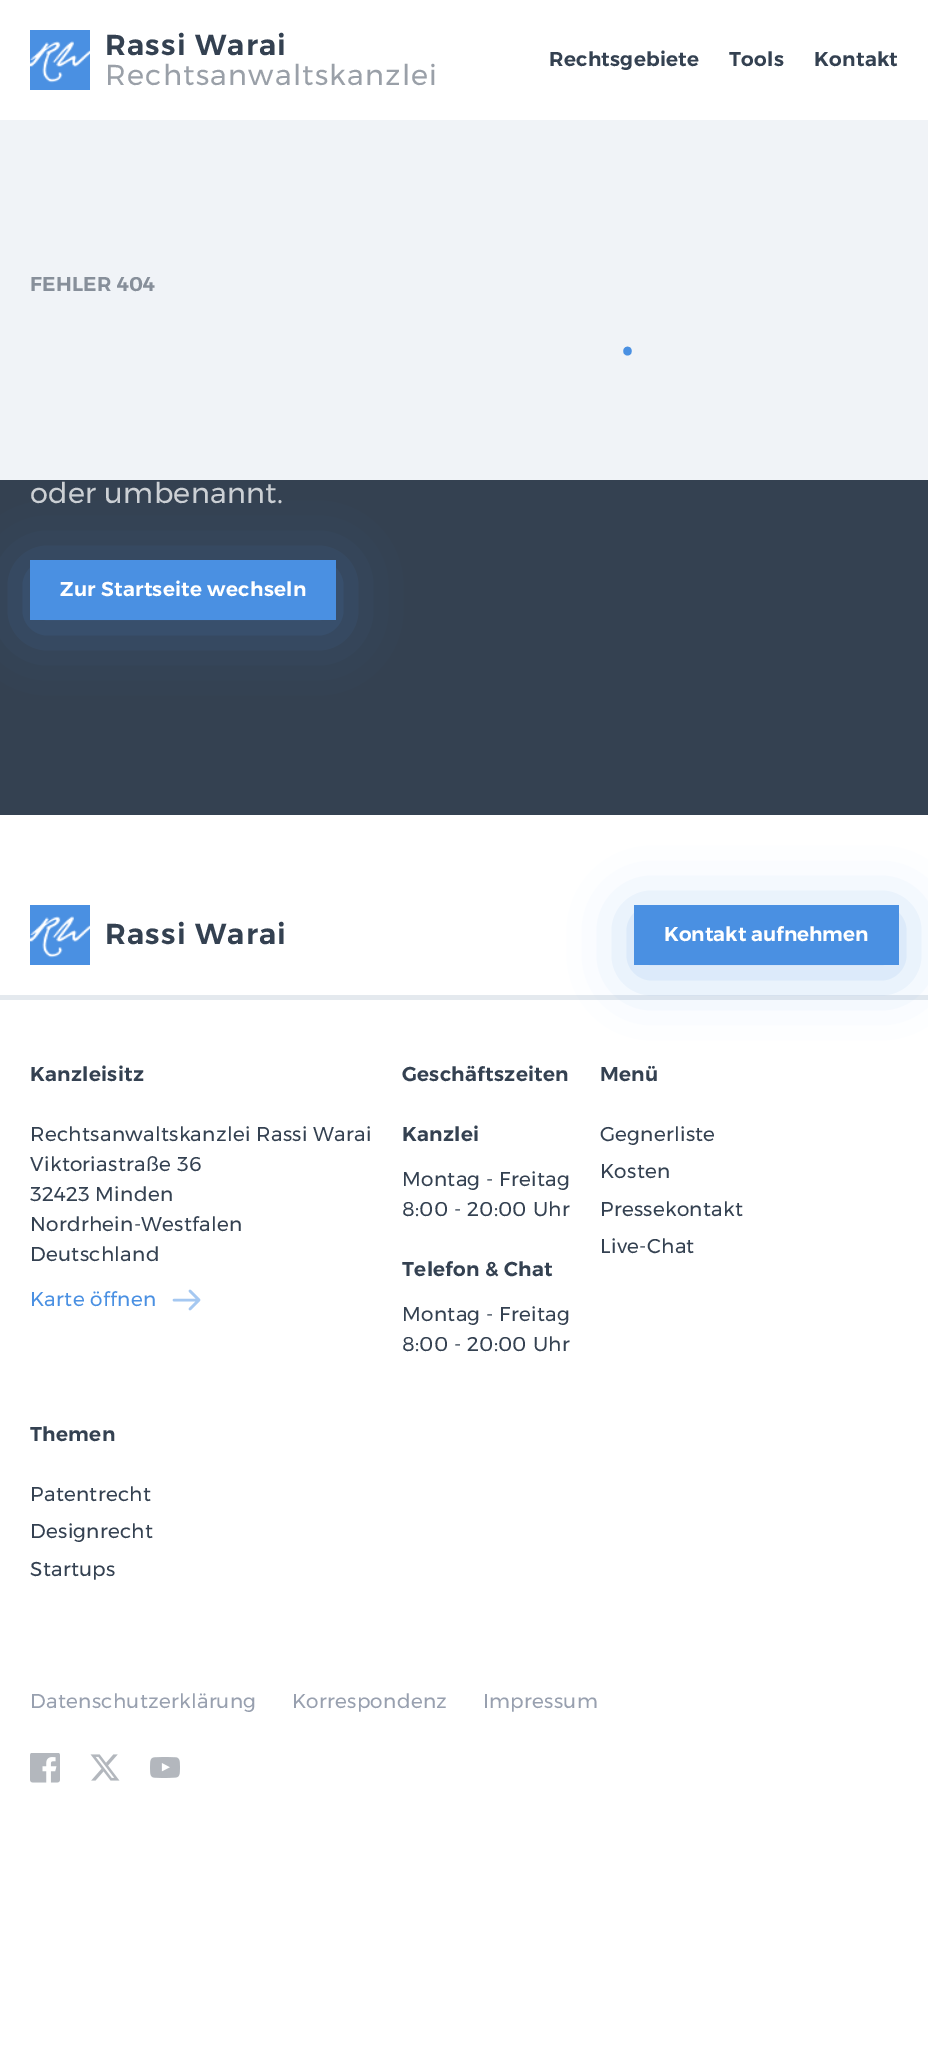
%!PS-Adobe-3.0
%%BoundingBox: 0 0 928 2059
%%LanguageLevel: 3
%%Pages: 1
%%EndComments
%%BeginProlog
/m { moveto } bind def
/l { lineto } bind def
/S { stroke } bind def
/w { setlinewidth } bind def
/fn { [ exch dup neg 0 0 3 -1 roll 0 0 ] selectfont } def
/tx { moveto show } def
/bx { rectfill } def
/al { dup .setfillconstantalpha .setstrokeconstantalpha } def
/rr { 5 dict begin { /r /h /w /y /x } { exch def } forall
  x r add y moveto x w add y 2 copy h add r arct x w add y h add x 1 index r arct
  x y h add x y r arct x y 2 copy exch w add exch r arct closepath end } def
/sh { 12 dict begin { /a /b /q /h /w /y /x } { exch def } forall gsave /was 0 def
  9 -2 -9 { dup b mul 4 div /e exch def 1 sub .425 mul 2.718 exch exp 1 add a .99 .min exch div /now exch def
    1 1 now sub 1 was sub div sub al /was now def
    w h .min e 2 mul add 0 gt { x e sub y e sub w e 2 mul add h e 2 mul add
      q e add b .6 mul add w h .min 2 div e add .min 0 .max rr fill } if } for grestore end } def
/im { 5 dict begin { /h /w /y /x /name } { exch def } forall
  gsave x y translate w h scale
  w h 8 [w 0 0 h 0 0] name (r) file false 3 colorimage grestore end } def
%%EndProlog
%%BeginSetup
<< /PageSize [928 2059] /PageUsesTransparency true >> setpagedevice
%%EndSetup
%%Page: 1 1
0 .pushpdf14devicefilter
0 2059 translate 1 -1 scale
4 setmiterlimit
1 setgray
0 0 928 2059 bx
(image0.raw) 30 30 60 60 im
/Montserrat-SemiBold 28.75 fn
0.204 0.255 0.318 setrgbcolor
105 55 m 1.25 0 (Rassi Warai) ashow
/Montserrat-Regular 28.75 fn
0.604 0.627 0.659 setrgbcolor
105 85 m 1.25 0 (Rechtsanwaltskanzlei) ashow
/Montserrat-SemiBold 20 fn
0.204 0.255 0.318 setrgbcolor
549 66 m 0.3 0 (Rechtsgebiete) ashow
729 66 m 0.3 0 (Tools) ashow
814 66 m 0.3 0 (Kontakt) ashow
0 480 928 335 bx
0.941 0.953 0.969 setrgbcolor
0 120 928 360 bx
0.529 0.561 0.604 setrgbcolor
30 291 m 0.3 0 (FEHLER 404) ashow
/Montserrat-SemiBold 56 fn
0.29 0.565 0.886 setrgbcolor
621 355 m 0.3 0 (.) ashow
/Montserrat-Regular 28.75 fn
0.8 0.816 0.831 setrgbcolor
30 503 m 0.3 0 (oder umbenannt.) ashow
0.29 0.565 0.886 setrgbcolor
30 568 306 60 0 30 0.38 sh
30 560 306 60 bx
/Montserrat-SemiBold 20 fn
1 setgray
60 596 m 0.3 0 (Zur Startseite wechseln) ashow
0.894 0.914 0.933 setrgbcolor
0 995 928 5 bx
(image0.raw) 30 905 60 60 im
/Montserrat-SemiBold 28.75 fn
0.204 0.255 0.318 setrgbcolor
105 944 m 1.25 0 (Rassi Warai) ashow
0.29 0.565 0.886 setrgbcolor
634 913 265 60 0 30 0.38 sh
634 905 265 60 bx
/Montserrat-SemiBold 20 fn
1 setgray
(Kontakt aufnehmen) 664 941 tx
0.204 0.255 0.318 setrgbcolor
30 1081 m 0.3 0 (Kanzleisitz) ashow
/Montserrat-Regular 20 fn
30 1141 m 0.3 0 (Rechtsanwaltskanzlei Rassi Warai) ashow
30 1171 m 0.3 0 (Viktoriastraße 36) ashow
30 1201 m 0.3 0 (32423 Minden) ashow
30 1231 m 0.3 0 (Nordrhein-Westfalen) ashow
30 1261 m 0.3 0 (Deutschland) ashow
0.29 0.565 0.886 setrgbcolor
30 1306 m 0.3 0 (Karte öffnen) ashow
0.647 0.784 0.945 setrgbcolor
2.5 w
1 setlinecap
1 setlinejoin
174 1300 m 199 1300 l 190 1291 m 199 1300 l 190 1309 l S
/Montserrat-SemiBold 20 fn
0.204 0.255 0.318 setrgbcolor
402 1081 m 0.3 0 (Geschäftszeiten) ashow
402 1141 m 0.3 0 (Kanzlei) ashow
/Montserrat-Regular 20 fn
402 1186 m 0.3 0 (Montag - Freitag) ashow
402 1216 m 0.3 0 (8:00 - 20:00 Uhr) ashow
/Montserrat-SemiBold 20 fn
402 1276 m 0.3 0 (Telefon & Chat) ashow
/Montserrat-Regular 20 fn
402 1321 m 0.3 0 (Montag - Freitag) ashow
402 1351 m 0.3 0 (8:00 - 20:00 Uhr) ashow
/Montserrat-SemiBold 20 fn
600 1081 m 0.3 0 (Menü) ashow
/Montserrat-Regular 20 fn
600 1141 m 0.3 0 (Gegnerliste) ashow
600 1178 m 0.3 0 (Kosten) ashow
600 1216 m 0.3 0 (Pressekontakt) ashow
600 1253 m 0.3 0 (Live-Chat) ashow
/Montserrat-SemiBold 20 fn
30 1441 m 0.3 0 (Themen) ashow
/Montserrat-Regular 20 fn
30 1501 m 0.3 0 (Patentrecht) ashow
30 1538 m 0.3 0 (Designrecht) ashow
30 1576 m 0.3 0 (Startups) ashow
0.596 0.627 0.686 setrgbcolor
30 1708 m 0.3 0 (Datenschutzerklärung) ashow
292 1708 m 0.3 0 (Korrespondenz) ashow
483 1708 m 0.3 0 (Impressum) ashow
(image1.raw) 30 1753 30 30 im
(image2.raw) 90 1754 30 27 im
(image3.raw) 150 1757 30 21 im
.poppdf14devicefilter showpage
%%EOF
